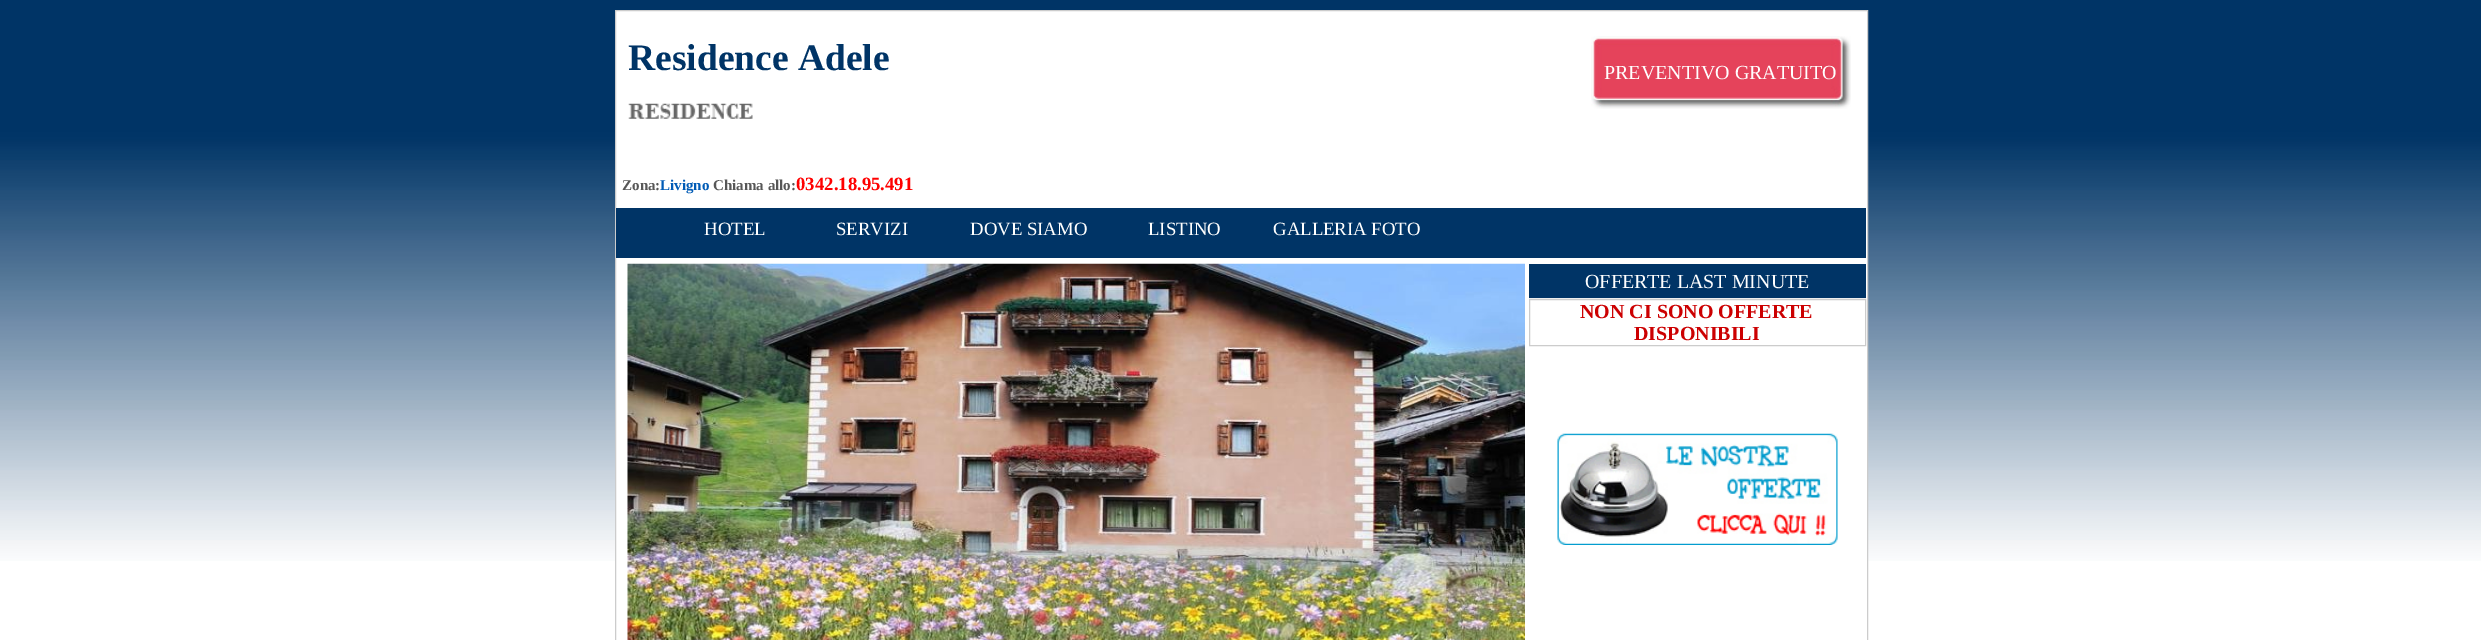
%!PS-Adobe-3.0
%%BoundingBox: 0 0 2481 640
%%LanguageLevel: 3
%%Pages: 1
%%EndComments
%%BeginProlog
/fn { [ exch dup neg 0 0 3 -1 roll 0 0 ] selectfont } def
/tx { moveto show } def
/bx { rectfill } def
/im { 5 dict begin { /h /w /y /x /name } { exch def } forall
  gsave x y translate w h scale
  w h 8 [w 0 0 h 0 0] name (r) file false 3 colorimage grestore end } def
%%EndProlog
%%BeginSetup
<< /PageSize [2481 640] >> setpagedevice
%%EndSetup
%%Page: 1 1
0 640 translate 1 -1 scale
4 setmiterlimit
1 setgray
0 0 2481 640 bx
(image0.raw) 0 0 2481 561 im
616 11 1251 550 bx
0.8 setgray
615.5 10.5 1252 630 rectstroke
/LiberationSerif-Bold 37.5 fn
0 0.204 0.4 setrgbcolor
(Residence Adele) 628 70 tx
(image1.raw) 1591 36 260 73 im
/LiberationSerif-Regular 20 fn
1 setgray
(PREVENTIVO GRATUITO) 1604 79 tx
(image2.raw) 628 103 125 16 im
/LiberationSerif-Bold 15 fn
0.341 setgray
(Zona:) 622 190 tx
0 0.357 0.714 setrgbcolor
(Livigno) 660 190 tx
0.341 setgray
(Chiama allo:) 713 190 tx
/LiberationSerif-Bold 18.75 fn
1 0 0 setrgbcolor
(0342.18.95.491) 796 190 tx
0 0.204 0.4 setrgbcolor
616 208 1250 50 bx
/LiberationSerif-Regular 18.75 fn
1 setgray
(HOTEL) 704 235 tx
(SERVIZI) 836 235 tx
(DOVE SIAMO) 970 235 tx
(LISTINO) 1148 235 tx
(GALLERIA FOTO) 1273 235 tx
(image3.raw) 627 263 898 377 im
0 0.204 0.4 setrgbcolor
1529 264 337 34 bx
0.933 setgray
1529 298 337 1 bx
/LiberationSerif-Regular 20 fn
1 setgray
(OFFERTE LAST MINUTE) 1585 288 tx
0.8 setgray
1529.5 299.5 336 46 rectstroke
/LiberationSerif-Bold 20 fn
0.8 0 0.004 setrgbcolor
(NON CI SONO OFFERTE) 1580 318 tx
(DISPONIBILI) 1634 340 tx
(image4.raw) 1557 433 281 112 im
showpage
%%EOF
